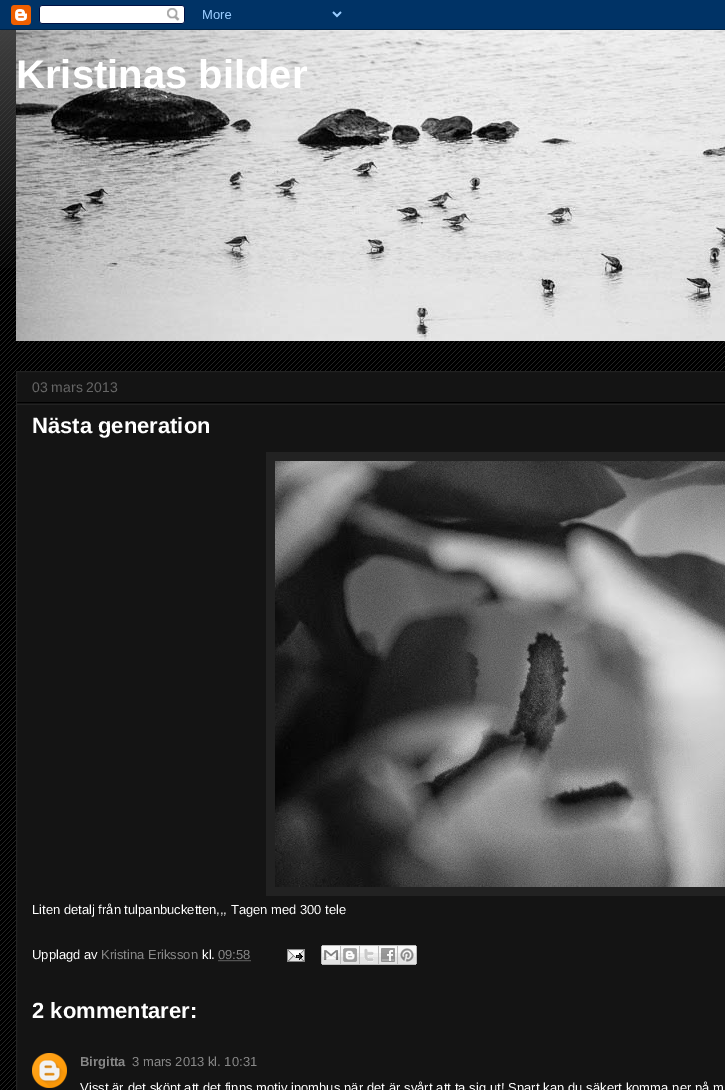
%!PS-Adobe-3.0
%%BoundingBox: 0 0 725 1090
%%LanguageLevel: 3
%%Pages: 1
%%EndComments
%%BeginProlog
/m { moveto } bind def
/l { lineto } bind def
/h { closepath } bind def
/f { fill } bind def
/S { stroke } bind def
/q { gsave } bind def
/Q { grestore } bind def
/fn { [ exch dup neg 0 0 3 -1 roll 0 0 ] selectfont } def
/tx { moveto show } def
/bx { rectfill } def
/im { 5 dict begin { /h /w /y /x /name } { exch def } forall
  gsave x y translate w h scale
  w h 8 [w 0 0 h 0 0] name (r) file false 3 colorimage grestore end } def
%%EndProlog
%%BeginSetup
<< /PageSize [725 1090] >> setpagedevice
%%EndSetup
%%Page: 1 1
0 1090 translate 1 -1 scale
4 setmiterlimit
0 setgray
0 0 725 1090 bx
(image0.raw) 0 0 725 30 im
(image1.raw) 0 30 725 1060 im
(image2.raw) 0 30 16 238 im
(image3.raw) 16 30 709 311 im
/LiberationSans-Bold 40 fn
1 setgray
(Kristinas bilder) 16 88 tx
0.078 setgray
16.5 371.5 m 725.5 371.5 l 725.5 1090.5 l 16.5 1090.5 l h q f Q
0.133 setgray
S
0 setgray
17 402 708 1 bx
/LiberationSans-Regular 14 fn
0.4 setgray
(03 mars 2013) 32 392 tx
0.133 setgray
17 404 708 1 bx
/LiberationSans-Bold 22 fn
1 setgray
(Nästa generation) 32 433 tx
0.133 setgray
266 452 459 444 bx
(image4.raw) 275 461 450 426 im
/LiberationSans-Regular 13 fn
1 setgray
(Liten detalj från tulpanbucketten,,, Tagen med 300 tele) 32 914 tx
(Upplagd av) 32 959 tx
0.533 setgray
(Kristina Eriksson) 101 959 tx
1 setgray
(kl.) 202 959 tx
0.533 setgray
(09:58) 218 959 tx
[1 1] 0 setdash
218.5 960.5 m 251 960.5 l S
(image5.raw) 287 949 18 13 im
(image6.raw) 321 945 20 20 im
(image7.raw) 341 945 19 20 im
(image8.raw) 360 945 19 20 im
(image9.raw) 379 945 19 20 im
(image10.raw) 398 945 19 20 im
/LiberationSans-Bold 22 fn
1 setgray
(2 kommentarer:) 32 1018 tx
(image11.raw) 32 1053 35 35 im
/LiberationSans-Bold 13 fn
0.533 setgray
(Birgitta) 80 1066 tx
/LiberationSans-Regular 13 fn
(3 mars 2013 kl. 10:31) 132 1066 tx
1 setgray
80 1092 m 0.3 0 32 (Visst är det skönt att det finns motiv inomhus när det är svårt att ta sig ut! Snart kan du säkert komma ner på m) widthshow
showpage
%%EOF
